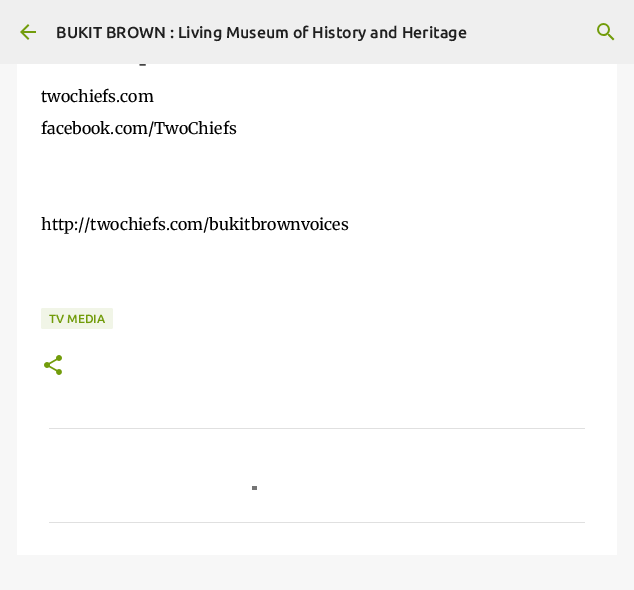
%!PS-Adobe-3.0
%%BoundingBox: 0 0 634 590
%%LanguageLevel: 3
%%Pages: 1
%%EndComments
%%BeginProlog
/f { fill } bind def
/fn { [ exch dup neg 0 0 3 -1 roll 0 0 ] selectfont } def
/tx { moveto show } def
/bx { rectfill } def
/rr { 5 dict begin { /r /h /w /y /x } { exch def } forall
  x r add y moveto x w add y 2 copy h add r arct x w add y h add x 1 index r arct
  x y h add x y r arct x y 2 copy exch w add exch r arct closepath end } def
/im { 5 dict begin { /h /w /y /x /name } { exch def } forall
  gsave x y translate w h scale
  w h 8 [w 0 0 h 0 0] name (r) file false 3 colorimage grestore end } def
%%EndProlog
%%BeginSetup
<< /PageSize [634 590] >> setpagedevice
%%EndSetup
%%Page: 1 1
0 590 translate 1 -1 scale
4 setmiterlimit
0.969 setgray
0 0 634 590 bx
0.937 setgray
0 0 634 64 bx
(image0.raw) 20 24 16 16 im
/Ubuntu-Medium 16 fn
0.122 setgray
(BUKIT BROWN : Living Museum of History and Heritage) 56 38 tx
(image1.raw) 597 23 18 18 im
1 setgray
17 64 600 491 bx
/Merriweather-Light 16 fn
0 setgray
(-) 138 70 tx
(twochiefs.com) 41 102 tx
(facebook.com/TwoChiefs) 41 134 tx
(http://twochiefs.com/bukitbrownvoices) 41 230 tx
0.945 0.961 0.906 setrgbcolor
41 308 72 21 2 rr f
/Ubuntu-Medium 12 fn
0.447 0.612 0.043 setrgbcolor
(TV MEDIA) 49 323 tx
(image2.raw) 44 355 18 20 im
0.878 setgray
49 428 536 1 bx
49 522 536 1 bx
0.459 setgray
252 486 5 4 bx
showpage
%%EOF
